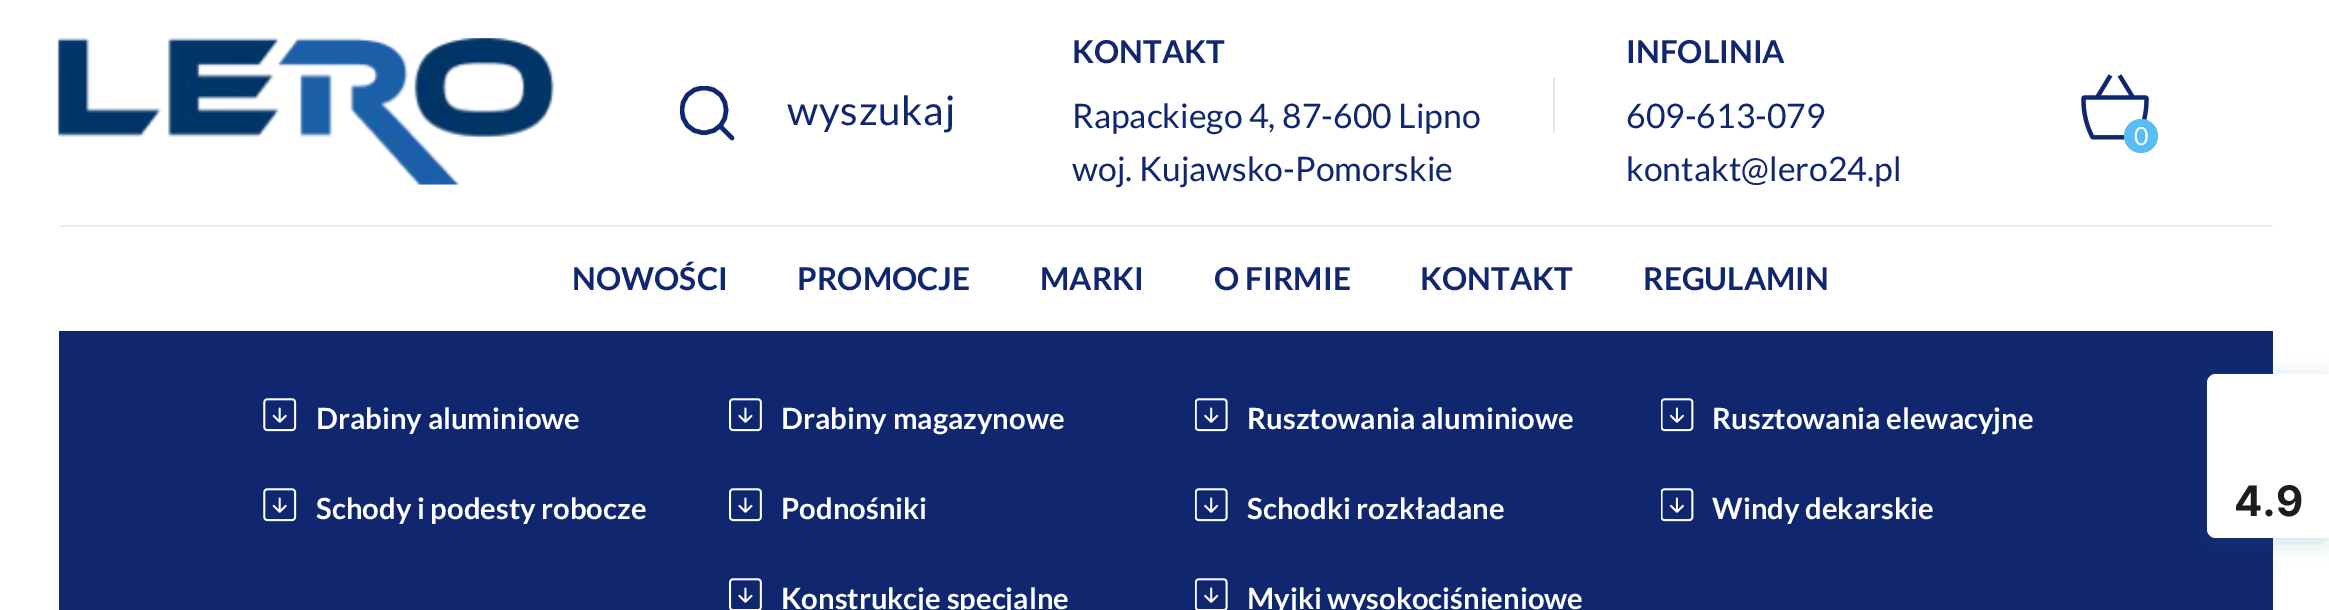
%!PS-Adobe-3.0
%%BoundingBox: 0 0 2329 610
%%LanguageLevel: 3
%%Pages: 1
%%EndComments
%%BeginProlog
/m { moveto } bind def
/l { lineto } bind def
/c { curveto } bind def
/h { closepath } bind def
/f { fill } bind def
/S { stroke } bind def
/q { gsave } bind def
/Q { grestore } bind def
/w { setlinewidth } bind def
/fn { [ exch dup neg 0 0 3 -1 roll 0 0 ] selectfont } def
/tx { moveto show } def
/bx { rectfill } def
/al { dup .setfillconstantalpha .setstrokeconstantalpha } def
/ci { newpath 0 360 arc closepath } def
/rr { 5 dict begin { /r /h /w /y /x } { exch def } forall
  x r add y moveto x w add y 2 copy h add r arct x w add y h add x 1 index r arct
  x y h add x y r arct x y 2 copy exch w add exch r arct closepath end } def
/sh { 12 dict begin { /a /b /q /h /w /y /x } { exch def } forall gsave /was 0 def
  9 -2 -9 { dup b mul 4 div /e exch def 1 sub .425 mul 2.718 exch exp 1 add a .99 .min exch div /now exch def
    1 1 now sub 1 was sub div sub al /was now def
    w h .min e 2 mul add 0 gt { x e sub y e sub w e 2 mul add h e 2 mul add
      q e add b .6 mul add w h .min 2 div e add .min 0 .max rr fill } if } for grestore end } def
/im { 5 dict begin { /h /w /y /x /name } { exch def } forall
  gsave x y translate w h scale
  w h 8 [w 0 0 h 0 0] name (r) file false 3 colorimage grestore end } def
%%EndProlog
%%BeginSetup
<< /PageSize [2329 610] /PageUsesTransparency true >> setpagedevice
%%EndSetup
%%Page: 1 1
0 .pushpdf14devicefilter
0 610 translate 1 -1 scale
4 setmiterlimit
1 setgray
0 0 2329 610 bx
(image0.raw) 57 38 497 147 im
q
680 86 56 56 rectclip
0.063 0.153 0.439 setrgbcolor
4.5 w
1 setlinecap
1 setlinejoin
704 132.5 m 733.5 132.5 733.5 88 704 88 c 674.5 88 674.5 132.5 704 132.5 c h S
Q
0.063 0.153 0.439 setrgbcolor
4.5 w
1 setlinecap
1 setlinejoin
732 138 m 720 126 l S
/Lato-Regular 40.5 fn
787 125 m 0.75 0 (wyszukaj) ashow
/Lato-Bold 31.5 fn
(KONTAKT) 1072 63 tx
/Lato-Regular 33.75 fn
(Rapackiego 4, 87-600 Lipno) 1072 128 tx
(woj. Kujawsko-Pomorskie) 1072 181 tx
0.898 0.902 0.922 setrgbcolor
1553 78 2 55 bx
/Lato-Bold 31.5 fn
0.063 0.153 0.439 setrgbcolor
(INFOLINIA) 1626 63 tx
/Lato-Regular 33.75 fn
(609-613-079) 1626 128 tx
(kontakt@lero24.pl) 1626 181 tx
(image1.raw) 2081 74 68 66 im
0.349 0.741 0.957 setrgbcolor
2141 136 17 ci f
/Lato-Regular 25 fn
1 setgray
(0) 2134 145 tx
0.918 0.929 0.961 setrgbcolor
59 225 2214 2 bx
/Lato-Bold 31.5 fn
0.063 0.153 0.439 setrgbcolor
(NOWOŚCI) 572 290 tx
(PROMOCJE) 797 290 tx
(MARKI) 1040 290 tx
(O FIRMIE) 1214 290 tx
(KONTAKT) 1420 290 tx
(REGULAMIN) 1643 290 tx
59 331 2214 279 bx
(image2.raw) 263 398 34 34 im
/Lato-Bold 29.25 fn
1 setgray
(Drabiny aluminiowe) 316 429 tx
(image3.raw) 729 398 33 34 im
(Drabiny magazynowe) 781 429 tx
(image4.raw) 1195 398 33 34 im
(Rusztowania aluminiowe) 1247 429 tx
(image5.raw) 1661 398 33 34 im
(Rusztowania elewacyjne) 1712 429 tx
(image2.raw) 263 488 34 34 im
(Schody i podesty robocze) 316 519 tx
(image3.raw) 729 488 33 34 im
(Podnośniki) 781 519 tx
(image4.raw) 1195 488 33 34 im
(Schodki rozkładane) 1247 519 tx
(image5.raw) 1661 488 33 34 im
(Windy dekarskie) 1712 519 tx
(image6.raw) 729 578 33 32 im
(Konstrukcje specjalne) 781 609 tx
(image7.raw) 1195 578 33 32 im
(Myjki wysokociśnieniowe) 1247 609 tx
0.043 0.337 0.502 setrgbcolor
2207 378 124 164 9 11 0.2 sh
1 setgray
2216 374 m 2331 374 l 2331 538 l 2216 538 l 2211 538 2207 534 2207 529 c 2207 383 l 2207 378 2211 374 2216 374 c h f
/Inter-Bold 42 fn
0.114 0.114 0.106 setrgbcolor
(4.9) 2234 516 tx
.poppdf14devicefilter showpage
%%EOF
